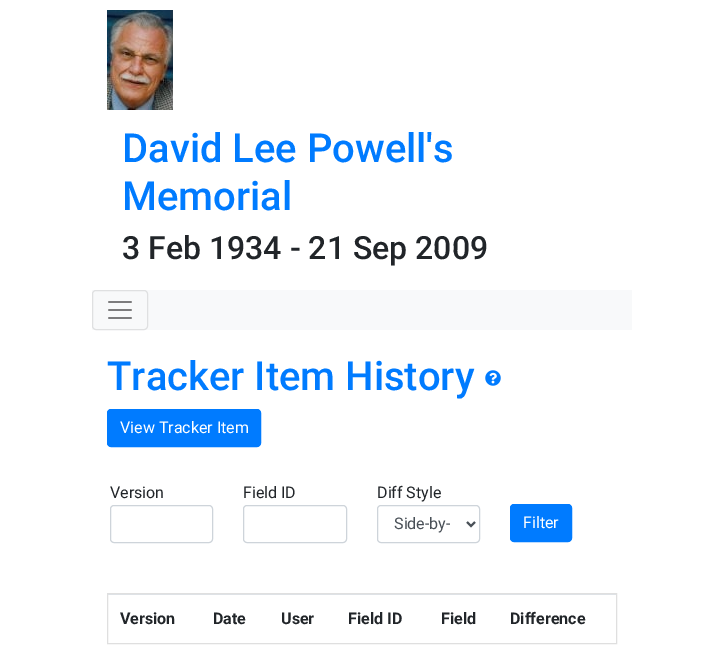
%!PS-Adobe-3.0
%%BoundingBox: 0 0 723 671
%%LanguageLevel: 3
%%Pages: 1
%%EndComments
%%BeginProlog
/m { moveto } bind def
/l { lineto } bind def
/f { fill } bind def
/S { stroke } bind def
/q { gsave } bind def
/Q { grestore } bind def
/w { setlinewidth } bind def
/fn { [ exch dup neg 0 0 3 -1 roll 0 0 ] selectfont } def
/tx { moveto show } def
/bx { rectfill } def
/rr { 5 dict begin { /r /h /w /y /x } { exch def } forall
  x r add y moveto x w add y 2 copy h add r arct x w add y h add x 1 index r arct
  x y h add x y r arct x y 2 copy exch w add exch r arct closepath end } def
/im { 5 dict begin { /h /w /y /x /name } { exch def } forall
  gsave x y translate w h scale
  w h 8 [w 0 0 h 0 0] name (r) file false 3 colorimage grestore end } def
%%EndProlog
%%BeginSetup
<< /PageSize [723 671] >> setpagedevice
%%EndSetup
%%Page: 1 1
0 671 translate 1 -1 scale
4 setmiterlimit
1 setgray
0 0 723 671 bx
(image0.raw) 107 10 66 100 im
/Roboto-Medium 40 fn
0 0.482 1 setrgbcolor
(David Lee Powell's) 122 162 tx
(Memorial) 122 210 tx
/Roboto-Medium 32 fn
0.129 0.145 0.161 setrgbcolor
(3 Feb 1934 - 21 Sep 2009) 122 259 tx
0.973 0.976 0.98 setrgbcolor
92 290 540 40 bx
0.875 0.878 0.882 setrgbcolor
92.5 290.5 55 39 3.5 rr S
(image1.raw) 108 301 24 18 im
/Roboto-Medium 40 fn
0 0.482 1 setrgbcolor
(Tracker Item History) 107 390 tx
(image2.raw) 485 370 16 16 im
107.5 409.5 153 37 3.5 rr q f Q
S
/Roboto-Regular 16 fn
1 setgray
(View Tracker Item) 120 433 tx
0.129 0.145 0.161 setrgbcolor
(Version) 110 498 tx
0.808 0.831 0.855 setrgbcolor
110.5 505.5 102 37 3.5 rr S
0.129 0.145 0.161 setrgbcolor
(Field ID) 243 498 tx
0.808 0.831 0.855 setrgbcolor
243.5 505.5 103 37 3.5 rr S
0.129 0.145 0.161 setrgbcolor
(Diff Style) 377 498 tx
0.808 0.831 0.855 setrgbcolor
377.5 505.5 102 37 3.5 rr S
0.286 0.314 0.341 setrgbcolor
2 w
467 522 m 471 526 l 475 522 l S
(Side-by-) 394 529 tx
0 0.482 1 setrgbcolor
510.5 504.5 61 37 3.5 rr q f Q
1 w
S
1 setgray
(Filter) 523 528 tx
0.875 setgray
107.5 593.5 509 50 rectstroke
/Roboto-Bold 16 fn
0.129 0.145 0.161 setrgbcolor
(Version) 120 624 tx
(Date) 213 624 tx
(User) 281 624 tx
(Field ID) 348 624 tx
(Field) 441 624 tx
0.871 0.886 0.902 setrgbcolor
108 594 508 1 bx
0.129 0.145 0.161 setrgbcolor
(Difference) 510 624 tx
showpage
%%EOF
